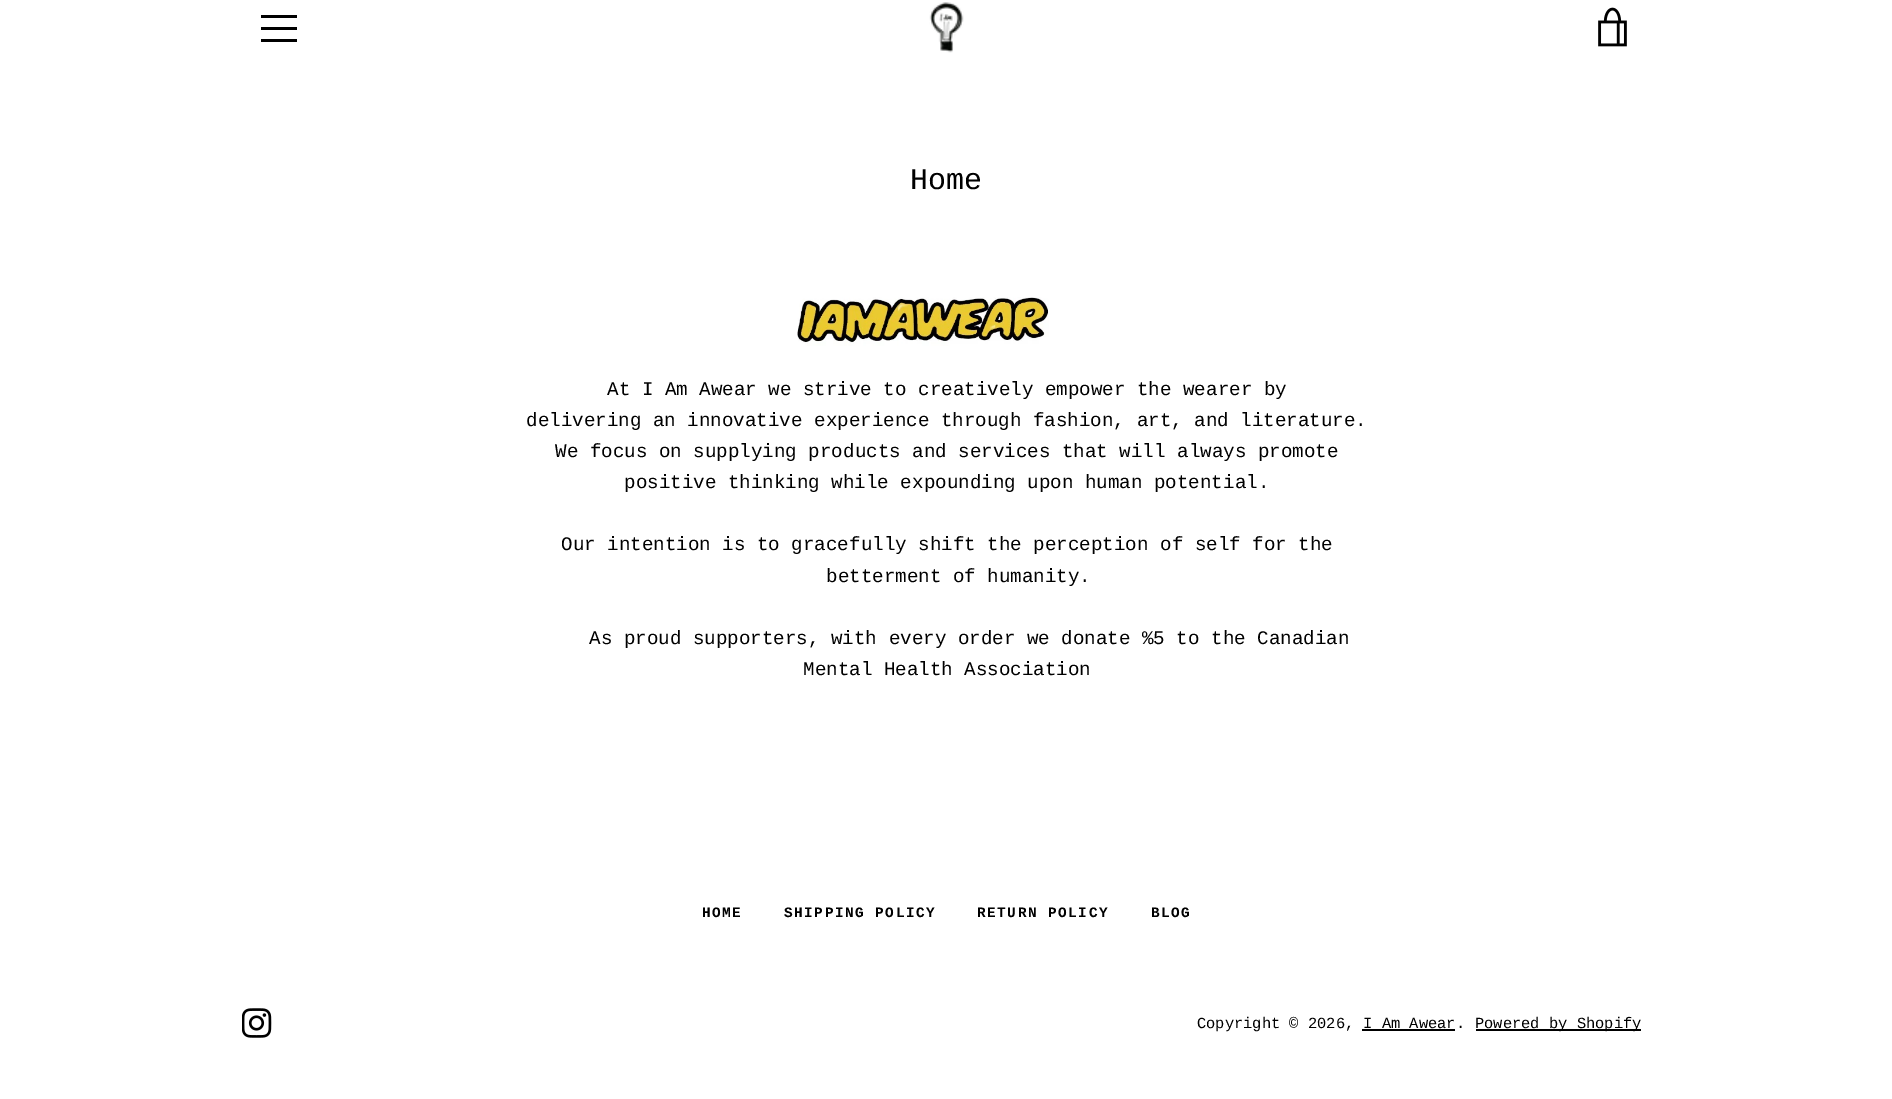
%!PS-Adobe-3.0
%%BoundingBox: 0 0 1892 1099
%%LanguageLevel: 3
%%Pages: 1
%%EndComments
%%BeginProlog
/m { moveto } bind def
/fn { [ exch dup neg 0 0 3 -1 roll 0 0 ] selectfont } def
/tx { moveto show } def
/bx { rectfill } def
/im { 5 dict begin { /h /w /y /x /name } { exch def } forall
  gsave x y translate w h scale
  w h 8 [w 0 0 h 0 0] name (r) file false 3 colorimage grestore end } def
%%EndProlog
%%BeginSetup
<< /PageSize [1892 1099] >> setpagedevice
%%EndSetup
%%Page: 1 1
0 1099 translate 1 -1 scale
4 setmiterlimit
1 setgray
0 0 1892 1099 bx
0 setgray
261 15 36 3 bx
261 27 36 3 bx
261 39 36 3 bx
(image0.raw) 929 2 35 51 im
(image1.raw) 1598 7 29 40 im
/LiberationMono-Regular 30 fn
(Home) 910 189 tx
(image2.raw) 797 297 252 49 im
/LiberationMono-Regular 19.2 fn
(At I Am Awear we strive to creatively empower the wearer by) 607 395 tx
(delivering an innovative experience through fashion, art, and literature.) 526 426 tx
(We focus on supplying products and services that will always promote) 555 457 tx
(positive thinking while expounding upon human potential.) 624 488 tx
(Our intention is to gracefully shift the perception of self for the) 561 550 tx
(betterment of humanity.) 826 582 tx
(As proud supporters, with every order we donate %5 to the Canadian) 589 644 tx
(Mental Health Association) 803 675 tx
/LiberationMono-Bold 14.4 fn
702 917 m 1.5 0 (HOME) ashow
784 917 m 1.5 0 (SHIPPING POLICY) ashow
977 917 m 1.5 0 (RETURN POLICY) ashow
1151 917 m 1.5 0 (BLOG) ashow
(image3.raw) 242 1008 30 30 im
/LiberationMono-Regular 15.4 fn
(Copyright © 2026, I Am Awear.) 1197 1028 tx
1362 1029 93 2 bx
1476 1029 165 2 bx
(Powered by Shopify) 1475 1028 tx
showpage
%%EOF
